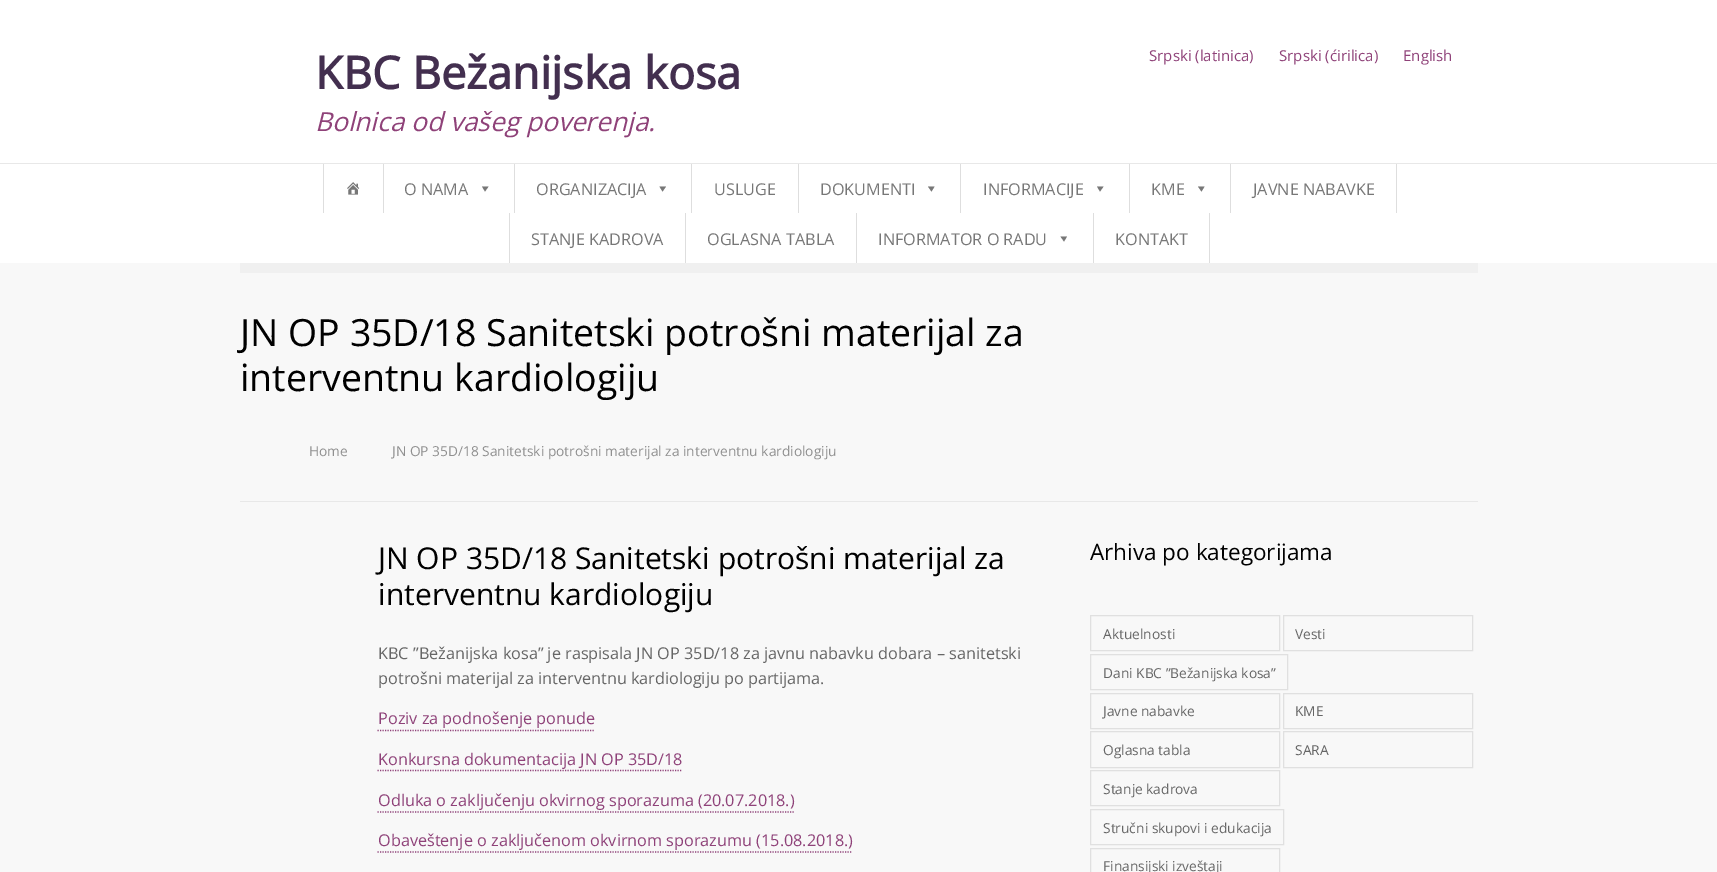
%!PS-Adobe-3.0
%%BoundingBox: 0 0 1717 872
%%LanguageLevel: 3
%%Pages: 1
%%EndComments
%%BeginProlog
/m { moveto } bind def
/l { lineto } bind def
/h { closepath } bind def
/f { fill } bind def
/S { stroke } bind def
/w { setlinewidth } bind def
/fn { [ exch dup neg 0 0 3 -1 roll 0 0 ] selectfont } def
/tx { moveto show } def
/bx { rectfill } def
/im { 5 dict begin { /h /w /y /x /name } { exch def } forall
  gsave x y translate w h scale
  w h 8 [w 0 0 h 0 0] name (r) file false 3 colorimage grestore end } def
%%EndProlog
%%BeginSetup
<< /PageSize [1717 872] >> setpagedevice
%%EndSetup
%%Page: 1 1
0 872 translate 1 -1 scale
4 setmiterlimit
0.973 setgray
0 0 1717 872 bx
1 setgray
0 0 1717 163 bx
/OpenSans-Bold 45 fn
0.263 0.184 0.31 setrgbcolor
(KBC Bežanijska kosa) 315 89 tx
/OpenSans-Italic 26.25 fn
0.561 0.259 0.475 setrgbcolor
(Bolnica od vašeg poverenja.) 315 131 tx
/OpenSans-Regular 15 fn
(Srpski \(latinica\)) 1149 61 tx
(Srpski \(ćirilica\)) 1279 61 tx
(English) 1403 61 tx
1 setgray
0 164 1717 99 bx
0.871 setgray
383 163 1 50 bx
323 163 1 50 bx
514 163 1 50 bx
691 163 1 50 bx
798 163 1 50 bx
960 163 1 50 bx
1129 163 1 50 bx
1230 163 1 50 bx
1396 163 1 50 bx
0.91 setgray
0 163 1717 1 bx
(image0.raw) 347 182 13 13 im
/OpenSans-Regular 16.25 fn
0.467 setgray
(O NAMA) 404 195 tx
488.5 186.5 m 485 191.5 l 482 186.5 l h f
(ORGANIZACIJA) 536 195 tx
666 186.5 m 662.5 191.5 l 659.5 186.5 l h f
(USLUGE) 714 195 tx
(DOKUMENTI) 820 195 tx
934.5 186.5 m 931.5 191.5 l 928 186.5 l h f
(INFORMACIJE) 983 195 tx
1103.5 186.5 m 1100 191.5 l 1097 186.5 l h f
(KME) 1151 195 tx
1204.5 186.5 m 1201.5 191.5 l 1198 186.5 l h f
(JAVNE NABAVKE) 1253 195 tx
0.871 setgray
685 213 1 50 bx
509 213 1 50 bx
0.467 setgray
(STANJE KADROVA) 531 245 tx
0.871 setgray
856 213 1 50 bx
0.467 setgray
(OGLASNA TABLA) 707 245 tx
0.871 setgray
1093 213 1 50 bx
0.467 setgray
(INFORMATOR O RADU) 878 245 tx
1067 236.5 m 1064 241.5 l 1060.5 236.5 l h f
0.871 setgray
1209 213 1 50 bx
0.467 setgray
(KONTAKT) 1115 245 tx
0.941 setgray
240 263 1238 10 bx
0.91 setgray
240 501 1238 1 bx
/OpenSans-Regular 37.5 fn
0 setgray
(JN OP 35D/18 Sanitetski potrošni materijal za) 240 346 tx
(interventnu kardiologiju) 240 391 tx
/OpenSans-Regular 13.75 fn
0.565 setgray
(Home) 309 456 tx
(JN OP 35D/18 Sanitetski potrošni materijal za interventnu kardiologiju) 392 456 tx
/OpenSans-Regular 30 fn
0 setgray
(JN OP 35D/18 Sanitetski potrošni materijal za) 378 569 tx
(interventnu kardiologiju) 378 605 tx
/OpenSans-Regular 16.25 fn
0.4 setgray
(KBC ”Bežanijska kosa” je raspisala JN OP 35D/18 za javnu nabavku dobara – sanitetski) 378 659 tx
(potrošni materijal za interventnu kardiologiju po partijama.) 378 684 tx
0.561 0.259 0.475 setrgbcolor
(Poziv za podnošenje ponude) 378 724 tx
1.2 w
[1.25 1.25] 0 setdash
377.5 730.5 m 595 730.5 l S
(Konkursna dokumentacija JN OP 35D/18) 378 765 tx
377.5 770.5 m 682.5 770.5 l S
(Odluka o zaključenju okvirnog sporazuma \(20.07.2018.\)) 378 806 tx
377.5 812 m 794 812 l S
(Obaveštenje o zaključenom okvirnom sporazumu \(15.08.2018.\)) 378 846 tx
377.5 852 m 852.5 852 l S
/OpenSans-Regular 22.5 fn
0 setgray
(Arhiva po kategorijama) 1090 560 tx
0.878 setgray
1 w
[] 0 setdash
1090.5 615.5 189 35 rectstroke
/OpenSans-Regular 13.75 fn
0.4 setgray
(Aktuelnosti) 1103 639 tx
0.878 setgray
1283.5 615.5 189 35 rectstroke
0.4 setgray
(Vesti) 1295 639 tx
0.878 setgray
1090.5 654.5 197 35 rectstroke
0.4 setgray
(Dani KBC ”Bežanijska kosa”) 1103 678 tx
0.878 setgray
1090.5 693.5 189 35 rectstroke
0.4 setgray
(Javne nabavke) 1103 716 tx
0.878 setgray
1283.5 693.5 189 35 rectstroke
0.4 setgray
(KME) 1295 716 tx
0.878 setgray
1090.5 731.5 189 36 rectstroke
0.4 setgray
(Oglasna tabla) 1103 755 tx
0.878 setgray
1283.5 731.5 189 36 rectstroke
0.4 setgray
(SARA) 1295 755 tx
0.878 setgray
1090.5 770.5 189 35 rectstroke
0.4 setgray
(Stanje kadrova) 1103 794 tx
0.878 setgray
1090.5 809.5 193 35 rectstroke
0.4 setgray
(Stručni skupovi i edukacija) 1103 833 tx
0.878 setgray
1090.5 848.5 189 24 rectstroke
0.4 setgray
(Finansijski izveštaji) 1103 871 tx
showpage
%%EOF
